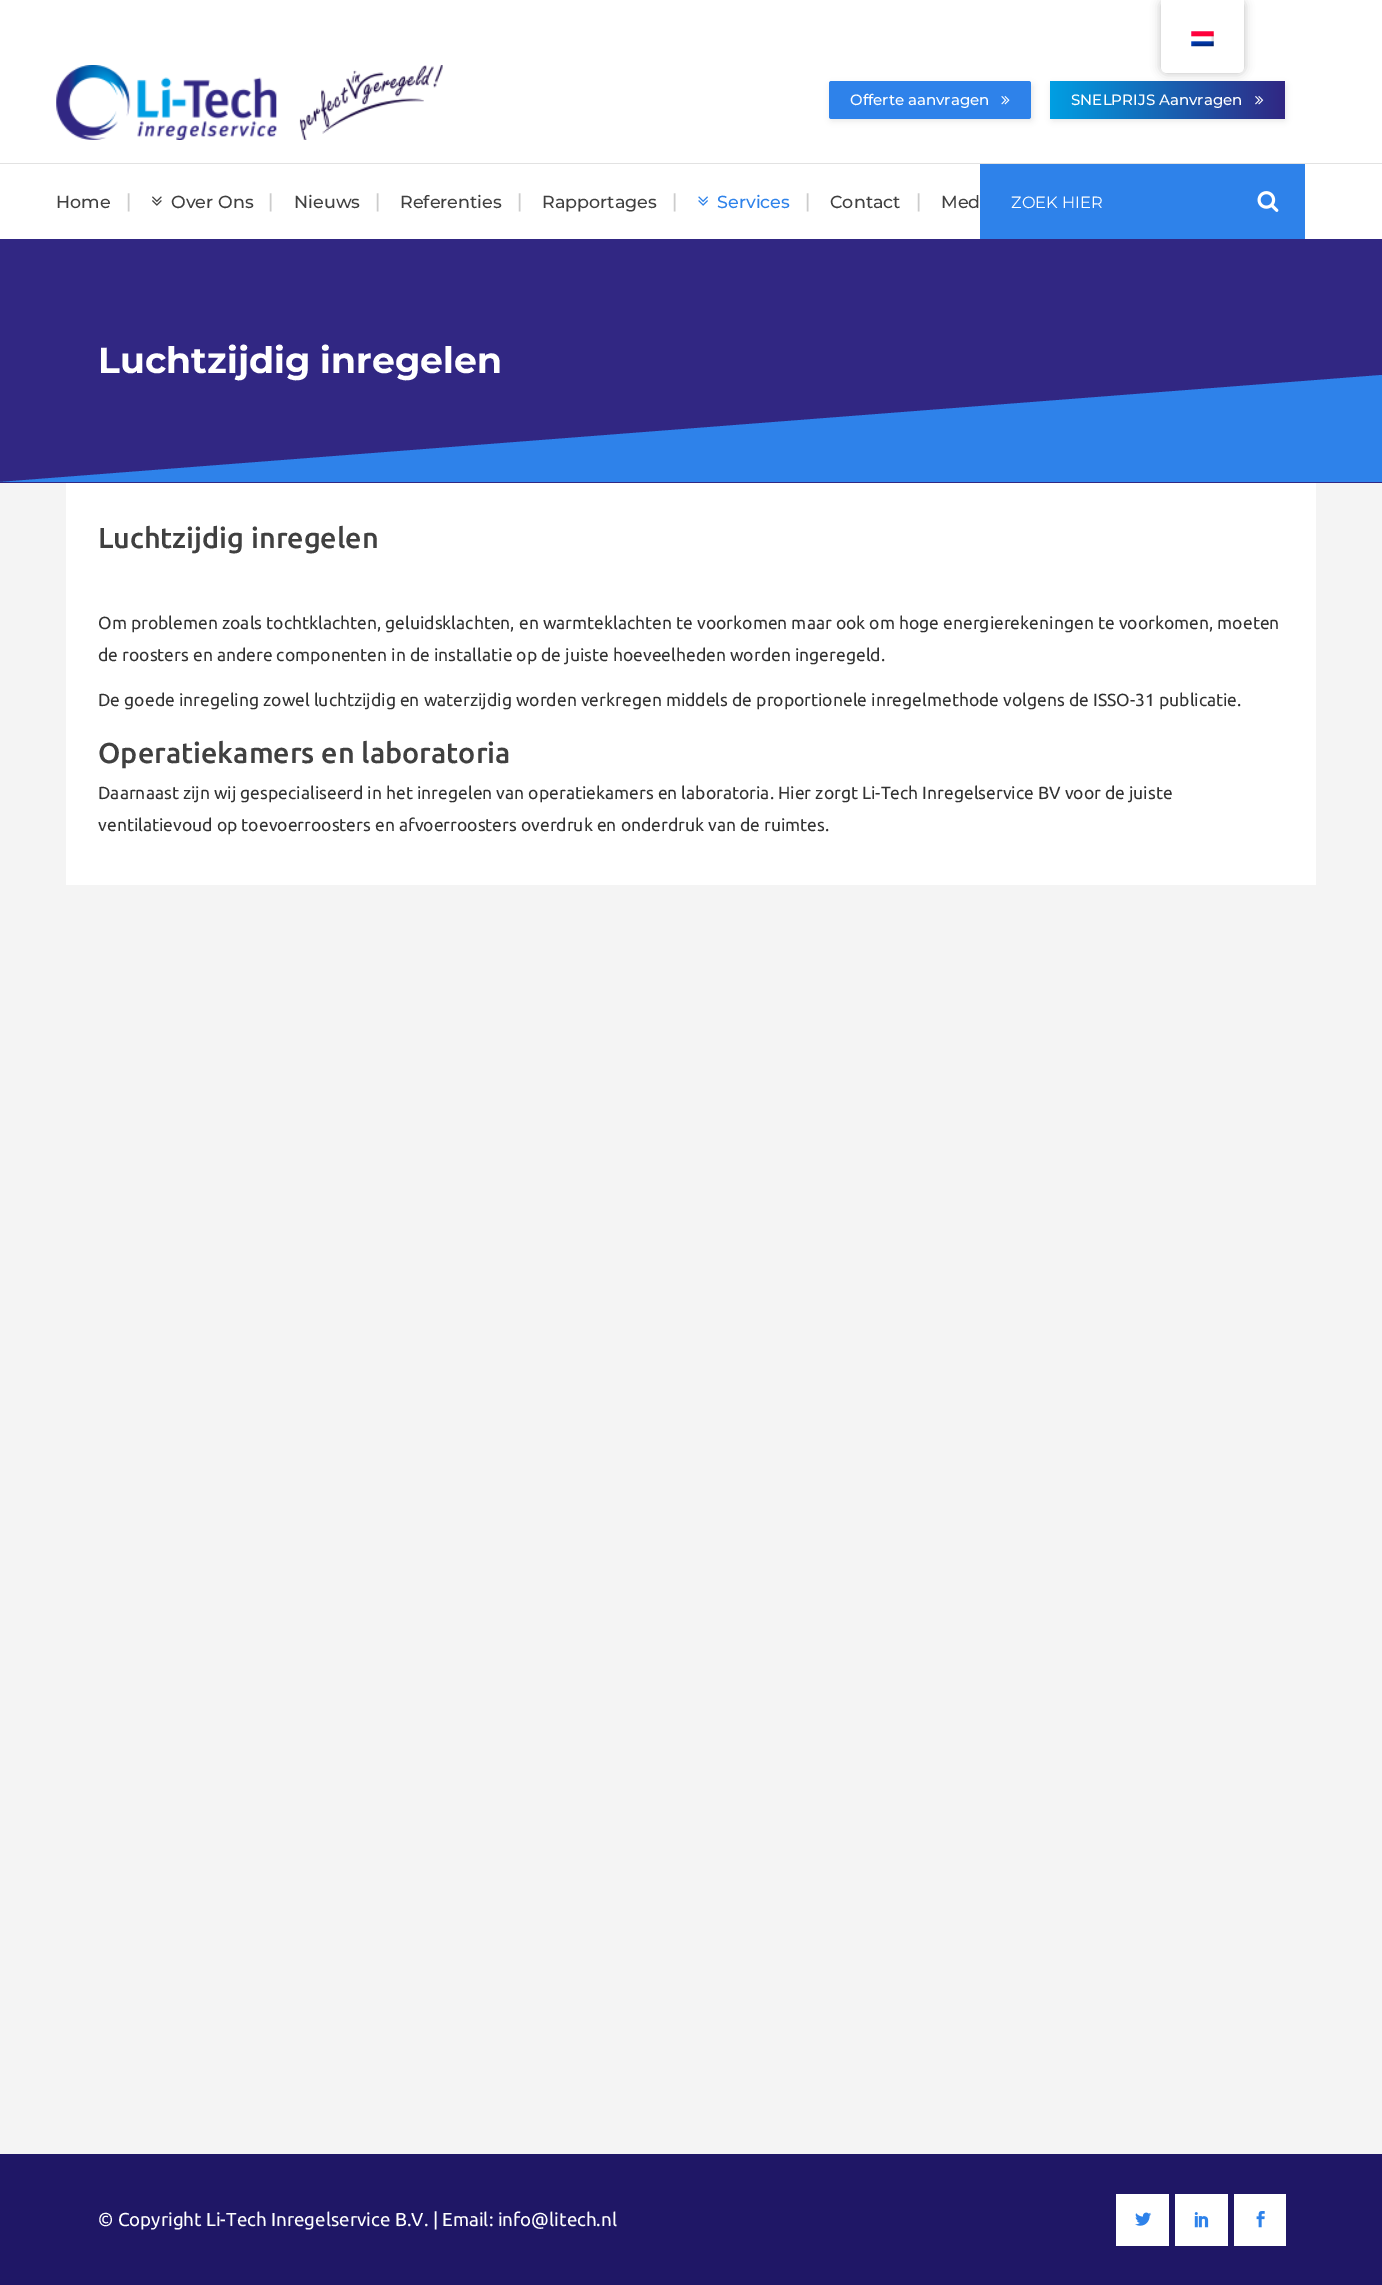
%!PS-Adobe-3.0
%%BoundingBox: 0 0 1382 2285
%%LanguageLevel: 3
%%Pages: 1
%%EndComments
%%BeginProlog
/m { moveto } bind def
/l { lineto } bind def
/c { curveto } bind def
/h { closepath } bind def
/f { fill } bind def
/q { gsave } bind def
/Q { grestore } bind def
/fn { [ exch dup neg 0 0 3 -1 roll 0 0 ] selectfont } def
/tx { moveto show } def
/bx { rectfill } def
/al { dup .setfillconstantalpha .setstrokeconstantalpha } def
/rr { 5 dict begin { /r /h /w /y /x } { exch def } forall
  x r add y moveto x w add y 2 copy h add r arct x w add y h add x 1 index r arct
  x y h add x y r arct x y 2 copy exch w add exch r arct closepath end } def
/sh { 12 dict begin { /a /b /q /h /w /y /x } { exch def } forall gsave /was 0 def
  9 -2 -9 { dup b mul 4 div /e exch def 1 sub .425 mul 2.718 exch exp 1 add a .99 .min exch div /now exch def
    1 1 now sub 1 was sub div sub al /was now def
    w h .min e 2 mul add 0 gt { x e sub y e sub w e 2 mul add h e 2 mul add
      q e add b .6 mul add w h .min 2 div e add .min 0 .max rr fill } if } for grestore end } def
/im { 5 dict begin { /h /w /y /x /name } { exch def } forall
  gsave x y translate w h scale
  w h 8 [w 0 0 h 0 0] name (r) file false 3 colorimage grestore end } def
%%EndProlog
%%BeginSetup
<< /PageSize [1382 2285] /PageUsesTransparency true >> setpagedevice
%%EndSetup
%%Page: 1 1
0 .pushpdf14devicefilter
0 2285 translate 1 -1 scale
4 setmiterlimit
0.957 setgray
0 0 1382 2285 bx
1 setgray
0 0 1382 239 bx
0 setgray
1051 84 235 37 2.5 3 0.09 sh
q 1050 81 235 38 2.5 rr clip newpath
<< /ShadingType 2 /ColorSpace /DeviceRGB /Coords [1050 100 1285 100] /Extend [true true] /Function << /FunctionType 2 /Domain [0 1] /C0 [0 0.624 0.89] /C1 [0.192 0.153 0.514] /N 1 >> >> shfill Q
1161 0 83 73 6 5 0.25 sh
1 setgray
1161 0 m 1244 0 l 1244 67 l 1244 70.5 1241.5 73 1238 73 c 1167 73 l 1163.5 73 1161 70.5 1161 67 c h f
(image0.raw) 1191 31 23 16 im
0 setgray
830 84 203 37 2.5 3 0.09 sh
0.18 0.51 0.918 setrgbcolor
829 81 202 38 2.5 rr f
/Montserrat-Medium 15 fn
1 setgray
(Offerte aanvragen) 850 105 tx
(image1.raw) 1001 96 9 9 im
(SNELPRIJS Aanvragen) 1071 105 tx
(image2.raw) 1255 96 9 9 im
0.886 setgray
0 163 1382 1 bx
(image3.raw) 56 65 387 75 im
/Montserrat-Medium 17.5 fn
0.251 setgray
(Home) 56 208 tx
/Ubuntu-Regular 18.75 fn
0.8 setgray
(|) 126 208 tx
(image4.raw) 152 196 10 10 im
/Montserrat-Medium 17.5 fn
0.251 setgray
(Over Ons) 171 208 tx
/Ubuntu-Regular 18.75 fn
0.8 setgray
(|) 268 208 tx
/Montserrat-Medium 17.5 fn
0.251 setgray
(Nieuws) 294 208 tx
/Ubuntu-Regular 18.75 fn
0.8 setgray
(|) 375 208 tx
/Montserrat-Medium 17.5 fn
0.251 setgray
(Referenties) 400 208 tx
/Ubuntu-Regular 18.75 fn
0.8 setgray
(|) 517 208 tx
/Montserrat-Medium 17.5 fn
0.251 setgray
(Rapportages) 542 208 tx
/Ubuntu-Regular 18.75 fn
0.8 setgray
(|) 672 208 tx
(image5.raw) 698 196 10 10 im
/Montserrat-Medium 17.5 fn
0.18 0.51 0.918 setrgbcolor
(Services) 717 208 tx
/Ubuntu-Regular 18.75 fn
0.8 setgray
(|) 805 208 tx
/Montserrat-Medium 17.5 fn
0.251 setgray
(Contact) 830 208 tx
/Ubuntu-Regular 18.75 fn
0.8 setgray
(|) 916 208 tx
/Montserrat-Medium 17.5 fn
0.251 setgray
(Med) 941 208 tx
0.18 0.51 0.918 setrgbcolor
980 164 325 75 bx
/Montserrat-Regular 16.25 fn
1 setgray
(ZOEK HIER) 1011 208 tx
(image6.raw) 1257 191 22 21 im
0.192 0.153 0.514 setrgbcolor
0 239 1382 244 bx
0.18 0.51 0.918 setrgbcolor
0 482 m 1382 375 l 1382 482 l h f
/Montserrat-Bold 36.25 fn
1 setgray
(Luchtzijdig inregelen) 98 373 tx
66 483 1250 402 bx
/Ubuntu-Medium 28.75 fn
0.251 setgray
(Luchtzijdig inregelen) 98 548 tx
/Ubuntu-Regular 17.5 fn
0.2 setgray
(Om problemen zoals tochtklachten, geluidsklachten, en warmteklachten te voorkomen maar ook om hoge energierekeningen te voorkomen, moeten) 98 629 tx
(de roosters en andere componenten in de installatie op de juiste hoeveelheden worden ingeregeld.) 98 661 tx
(De goede inregeling zowel luchtzijdig en waterzijdig worden verkregen middels de proportionele inregelmethode volgens de ISSO-31 publicatie.) 98 706 tx
/Ubuntu-Medium 28.75 fn
0.251 setgray
(Operatiekamers en laboratoria) 98 763 tx
/Ubuntu-Regular 17.5 fn
0.2 setgray
(Daarnaast zijn wij gespecialiseerd in het inregelen van operatiekamers en laboratoria. Hier zorgt Li-Tech Inregelservice BV voor de juiste) 98 799 tx
(ventilatievoud op toevoerroosters en afvoerroosters overdruk en onderdruk van de ruimtes.) 98 831 tx
0.122 0.09 0.4 setrgbcolor
0 2154 1382 131 bx
/Ubuntu-Regular 18.75 fn
1 setgray
(© Copyright Li-Tech Inregelservice B.V. | Email: info@litech.nl) 98 2226 tx
1116 2194 53 52 bx
(image7.raw) 1135 2212 17 14 im
1175 2194 53 52 bx
(image8.raw) 1194 2212 15 16 im
1234 2194 52 52 bx
(image9.raw) 1256 2211 9 17 im
.poppdf14devicefilter showpage
%%EOF
